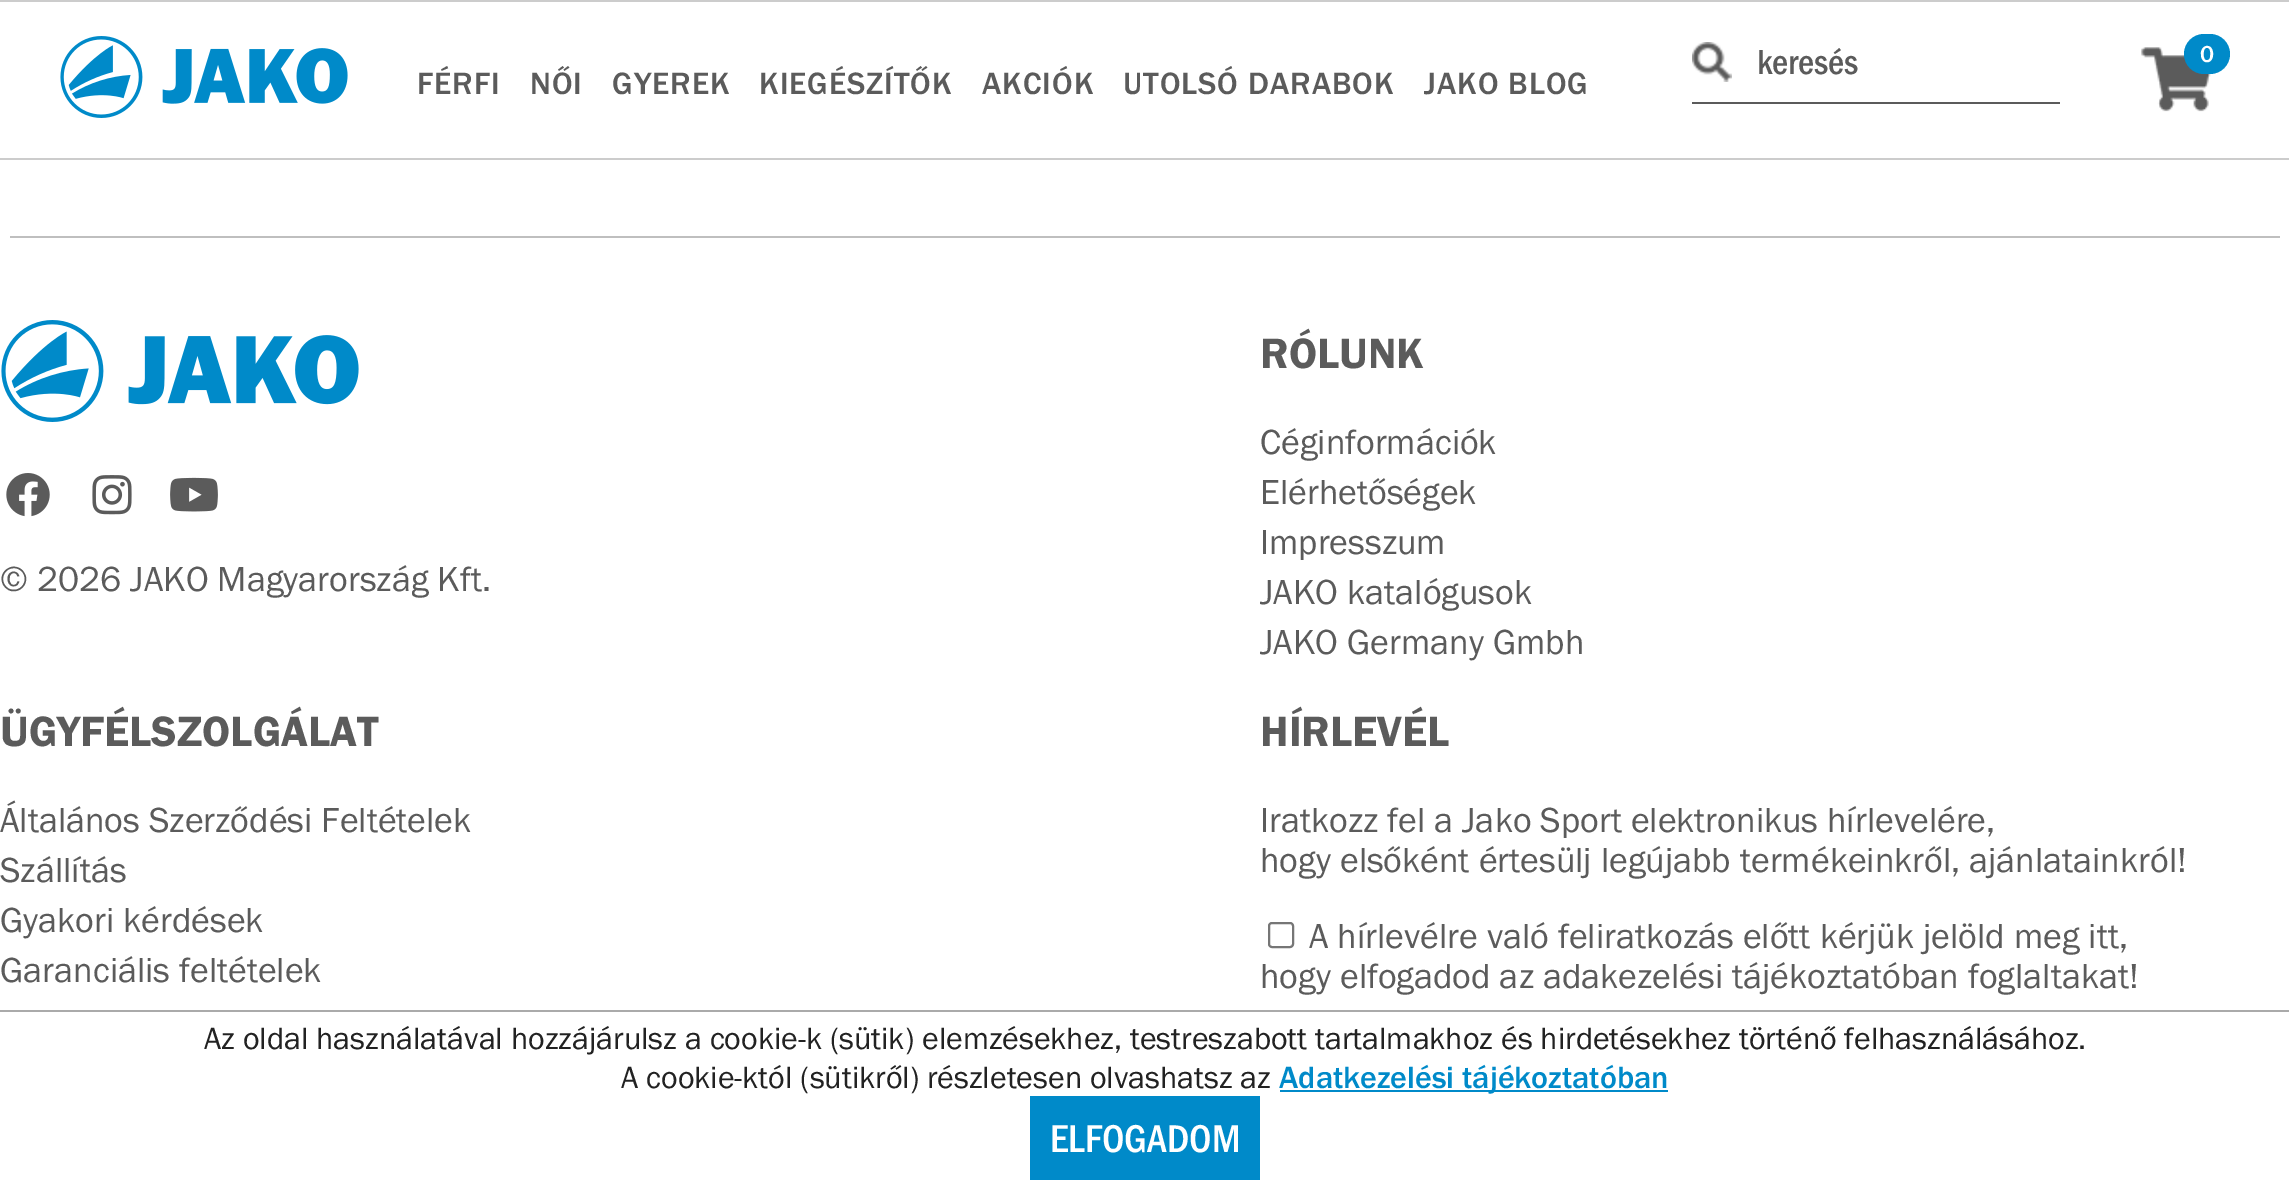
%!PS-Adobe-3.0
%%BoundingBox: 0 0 2289 1187
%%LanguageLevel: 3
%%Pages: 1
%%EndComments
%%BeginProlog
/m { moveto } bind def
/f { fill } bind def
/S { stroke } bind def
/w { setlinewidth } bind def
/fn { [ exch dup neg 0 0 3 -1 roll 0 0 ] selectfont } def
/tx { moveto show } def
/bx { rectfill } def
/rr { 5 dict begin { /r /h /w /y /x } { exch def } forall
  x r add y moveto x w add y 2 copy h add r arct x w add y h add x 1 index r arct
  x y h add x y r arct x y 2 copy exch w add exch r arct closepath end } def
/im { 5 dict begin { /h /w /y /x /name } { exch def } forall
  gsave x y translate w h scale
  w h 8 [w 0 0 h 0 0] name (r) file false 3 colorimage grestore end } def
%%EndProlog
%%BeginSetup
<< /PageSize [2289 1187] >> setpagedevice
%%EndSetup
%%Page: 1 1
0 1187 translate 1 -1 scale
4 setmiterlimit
1 setgray
0 0 2289 1187 bx
0.8 setgray
0 0 2289 2 bx
0 158 2289 2 bx
(image0.raw) 1692 42 40 40 im
0.357 setgray
1692 102 368 2 bx
/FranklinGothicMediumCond-Medium 36 fn
(keresés) 1757 74 tx
(image1.raw) 2141 47 70 65 im
0 0.541 0.788 setrgbcolor
2184 34 46 40 20 rr f
/FranklinGothic-Medium 24 fn
1 setgray
(0) 2200 62 tx
(image2.raw) 60 36 288 82 im
/FranklinGothic-Medium 32 fn
0.357 setgray
417 94 m 1 0 (FÉRFI) ashow
530 94 m 1 0 (NŐI) ashow
612 94 m 1 0 (GYEREK) ashow
759 94 m 1 0 (KIEGÉSZÍTŐK) ashow
982 94 m 1 0 (AKCIÓK) ashow
1123 94 m 1 0 (UTOLSÓ DARABOK) ashow
1424 94 m 1 0 (JAKO BLOG) ashow
0.749 setgray
10 236 2270 2 bx
(image3.raw) 1 320 358 102 im
(image4.raw) 6 473 44 44 im
(image5.raw) 92 475 40 40 im
(image6.raw) 170 477 48 35 im
/FranklinGothic-Regular 36 fn
0.357 setgray
(© 2026 JAKO Magyarország Kft.) 0 591 tx
/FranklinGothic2-Regular 44 fn
(RÓLUNK) 1260 368 tx
/FranklinGothic-Regular 36 fn
(Céginformációk) 1260 454 tx
(Elérhetőségek) 1260 504 tx
(Impresszum) 1260 554 tx
(JAKO katalógusok) 1260 604 tx
(JAKO Germany Gmbh) 1260 654 tx
/FranklinGothic2-Regular 44 fn
(ÜGYFÉLSZOLGÁLAT) 0 746 tx
/FranklinGothic-Regular 36 fn
(Általános Szerződési Feltételek) 0 832 tx
(Szállítás) 0 882 tx
(Gyakori kérdések) 0 932 tx
(Garanciális feltételek) 0 982 tx
/FranklinGothic2-Regular 44 fn
(HÍRLEVÉL) 1260 746 tx
/FranklinGothic-Regular 36 fn
(Iratkozz fel a Jako Sport elektronikus hírlevelére,) 1260 832 tx
(hogy elsőként értesülj legújabb termékeinkről, ajánlatainkról!) 1260 872 tx
0.463 setgray
2 w
1269 923 24 24 3 rr S
0.357 setgray
(A hírlevélre való feliratkozás előtt kérjük jelöld meg itt,) 1309 948 tx
(hogy elfogadod az adakezelési tájékoztatóban foglaltakat!) 1260 988 tx
0.667 setgray
0 1010 2289 2 bx
/FranklinGothic-Regular 32 fn
0.133 setgray
(Az oldal használatával hozzájárulsz a cookie-k \(sütik\) elemzésekhez, testreszabott tartalmakhoz és hirdetésekhez történő felhasználásához.) 204 1049 tx
(A cookie-któl \(sütikről\) részletesen olvashatsz az) 621 1088 tx
0 0.541 0.788 setrgbcolor
1280 1090 388 2 bx
/FranklinGothic-Medium 32 fn
(Adatkezelési tájékoztatóban) 1279 1088 tx
1030 1096 230 84 bx
/FranklinGothicMediumCond-Medium 40 fn
1 setgray
(ELFOGADOM) 1050 1152 tx
showpage
%%EOF
